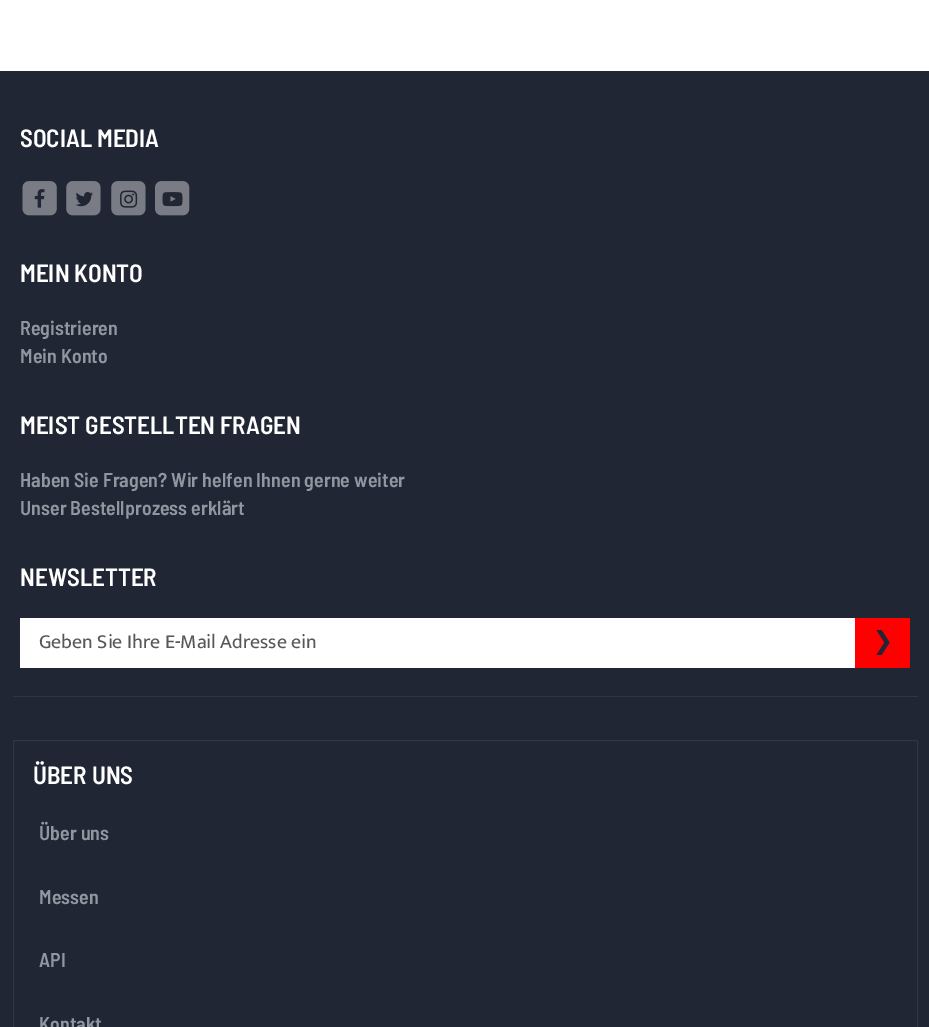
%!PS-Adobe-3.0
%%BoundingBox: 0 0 929 1027
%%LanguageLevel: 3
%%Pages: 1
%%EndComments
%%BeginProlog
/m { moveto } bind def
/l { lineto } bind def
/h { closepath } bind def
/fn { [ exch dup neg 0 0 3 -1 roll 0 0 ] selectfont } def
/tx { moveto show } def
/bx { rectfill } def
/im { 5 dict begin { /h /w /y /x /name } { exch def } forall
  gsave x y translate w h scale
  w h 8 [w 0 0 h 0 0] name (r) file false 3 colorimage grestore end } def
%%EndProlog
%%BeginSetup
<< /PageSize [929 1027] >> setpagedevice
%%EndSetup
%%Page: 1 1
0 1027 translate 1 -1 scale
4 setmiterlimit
1 setgray
0 0 929 1027 bx
0.125 0.149 0.2 setrgbcolor
0 71 929 956 bx
/BarlowSemiCondensed-SemiBold 25 fn
1 setgray
(SOCIAL MEDIA) 20 147 tx
(image0.raw) 22 181 35 35 im
(image1.raw) 34 189 11 19 im
(image2.raw) 66 181 35 35 im
(image3.raw) 75 192 18 15 im
(image2.raw) 111 181 35 35 im
(image4.raw) 120 190 18 18 im
(image5.raw) 155 181 35 35 im
(image6.raw) 162 192 21 15 im
(MEIN KONTO) 20 282 tx
/BarlowSemiCondensed-SemiBold 20 fn
0.561 0.596 0.631 setrgbcolor
(Registrieren) 20 335 tx
(Mein Konto) 20 363 tx
/BarlowSemiCondensed-SemiBold 25 fn
1 setgray
(MEIST GESTELLTEN FRAGEN) 20 434 tx
/BarlowSemiCondensed-SemiBold 20 fn
0.561 0.596 0.631 setrgbcolor
(Haben Sie Fragen? Wir helfen Ihnen gerne weiter) 20 487 tx
(Unser Bestellprozess erklärt) 20 515 tx
/BarlowSemiCondensed-SemiBold 25 fn
1 setgray
(NEWSLETTER) 20 586 tx
20 618 835 50 bx
/Mukta-Regular 20 fn
0.341 setgray
(Geben Sie Ihre E-Mail Adresse ein) 39 648 tx
1 0 0 setrgbcolor
855 618 55 50 bx
0.125 0.149 0.2 setrgbcolor
889.5 642.5 m 881.5 655 l 876.5 655 l 884.5 642.5 l 876.5 630 l 881.5 630 l h eofill
0.169 0.224 0.271 setrgbcolor
13 696 905 1 bx
13.5 740.5 904 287 rectstroke
/BarlowSemiCondensed-SemiBold 25 fn
1 setgray
(ÜBER UNS) 33 784 tx
/BarlowSemiCondensed-SemiBold 20 fn
0.561 0.596 0.631 setrgbcolor
(Über uns) 39 840 tx
(Messen) 39 904 tx
(API) 39 967 tx
(Kontakt) 39 1031 tx
showpage
%%EOF
